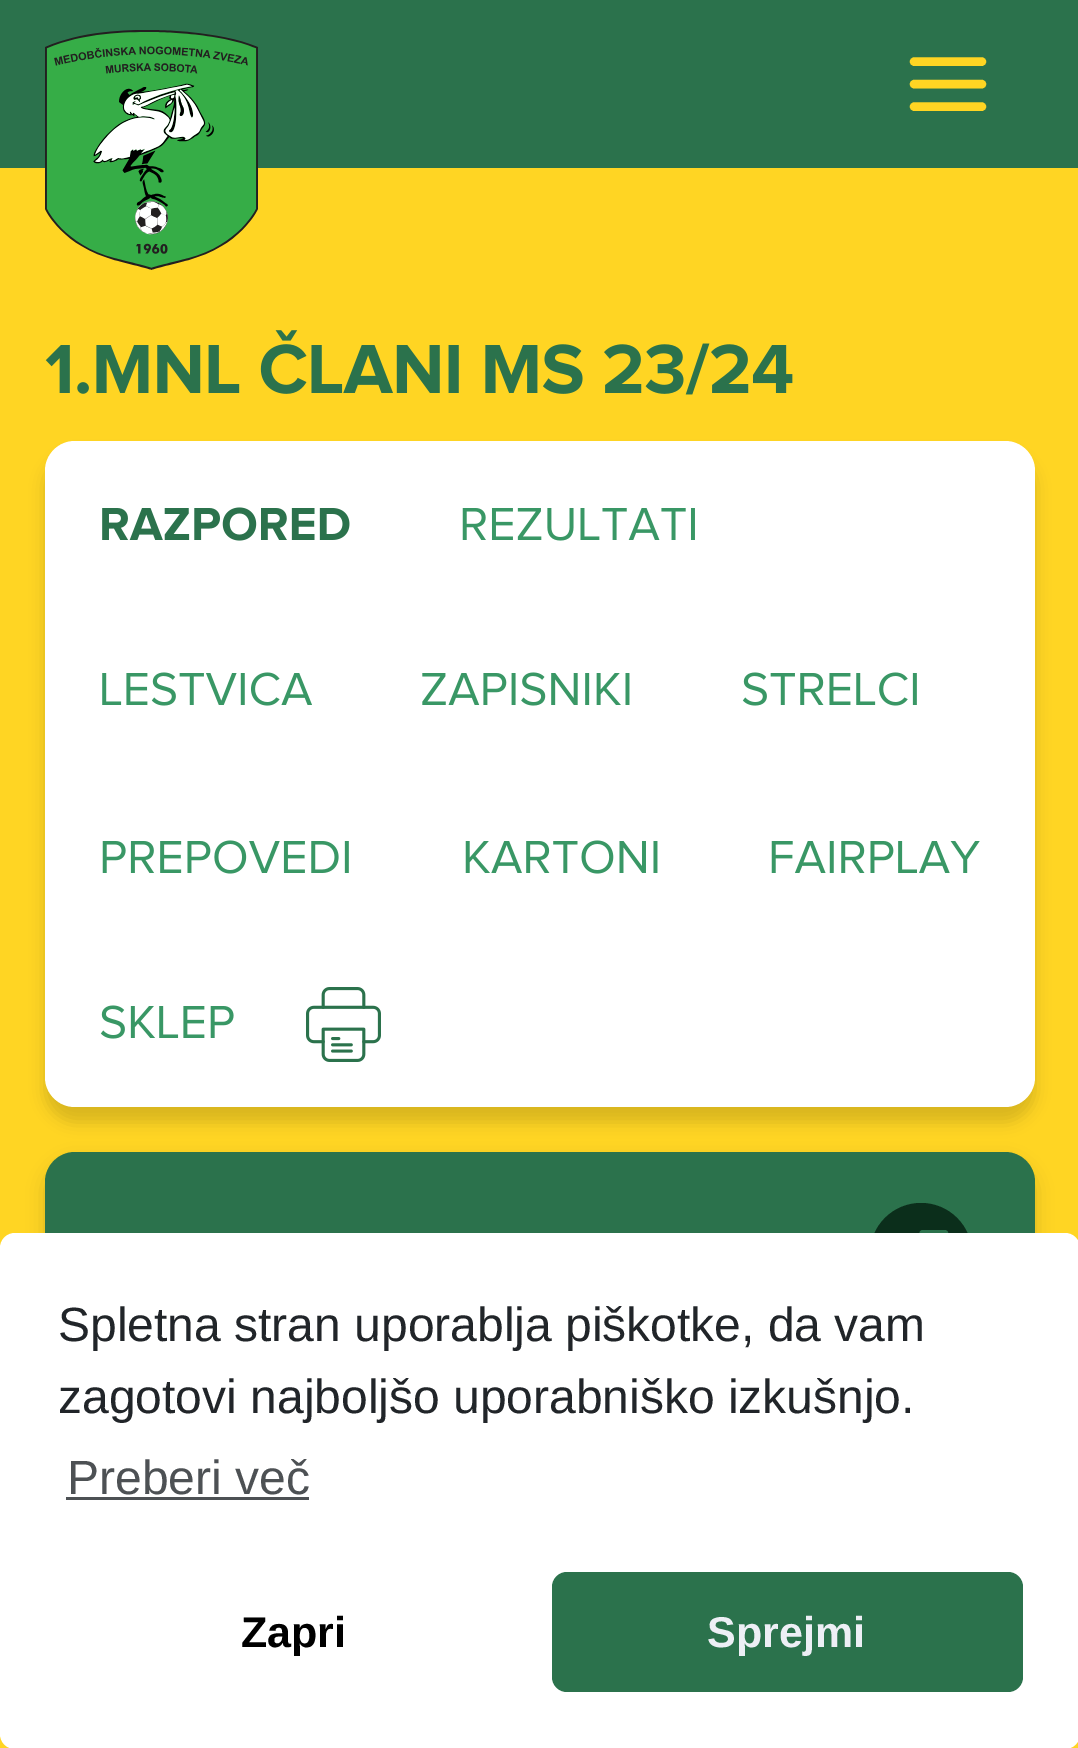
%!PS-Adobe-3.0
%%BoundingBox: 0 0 1078 1748
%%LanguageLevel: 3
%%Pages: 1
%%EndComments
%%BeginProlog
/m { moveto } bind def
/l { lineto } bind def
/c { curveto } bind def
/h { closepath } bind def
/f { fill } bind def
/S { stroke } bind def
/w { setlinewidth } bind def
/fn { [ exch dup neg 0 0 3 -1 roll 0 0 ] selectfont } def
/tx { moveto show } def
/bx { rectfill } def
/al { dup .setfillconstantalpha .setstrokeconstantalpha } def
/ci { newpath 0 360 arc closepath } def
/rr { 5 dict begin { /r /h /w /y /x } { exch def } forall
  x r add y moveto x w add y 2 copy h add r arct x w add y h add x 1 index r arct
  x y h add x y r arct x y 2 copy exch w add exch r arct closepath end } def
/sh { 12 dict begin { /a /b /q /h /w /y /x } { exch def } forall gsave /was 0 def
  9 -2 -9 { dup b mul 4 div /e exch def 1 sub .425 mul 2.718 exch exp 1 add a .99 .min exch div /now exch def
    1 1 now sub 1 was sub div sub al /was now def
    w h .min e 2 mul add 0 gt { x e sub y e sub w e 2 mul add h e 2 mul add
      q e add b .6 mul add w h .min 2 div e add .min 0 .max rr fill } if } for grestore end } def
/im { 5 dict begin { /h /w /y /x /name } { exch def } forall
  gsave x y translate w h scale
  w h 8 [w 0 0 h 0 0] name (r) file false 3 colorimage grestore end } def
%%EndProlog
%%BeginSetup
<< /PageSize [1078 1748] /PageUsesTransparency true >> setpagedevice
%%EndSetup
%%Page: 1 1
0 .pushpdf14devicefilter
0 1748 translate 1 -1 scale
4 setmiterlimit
1 0.835 0.137 setrgbcolor
0 0 1078 1748 bx
0.169 0.447 0.298 setrgbcolor
0 0 1078 168 bx
1 0.835 0.137 setrgbcolor
8.4 w
1 setlinecap
914 61.5 m 982 61.5 l 914 84 m 982 84 l 914 106.5 m 982 106.5 l S
(image0.raw) 45 30 213 240 im
(image1.raw) 45 330 748 65 im
0 setgray
45 456 990 666 30 7.5 0.15 sh
1 setgray
45 441 990 666 30 rr f
(image2.raw) 102 507 248 34 im
(image3.raw) 462 508 233 33 im
(image4.raw) 102 672 210 34 im
(image5.raw) 422 672 208 34 im
(image6.raw) 742 672 175 34 im
(image7.raw) 102 840 247 34 im
(image8.raw) 465 840 193 34 im
(image9.raw) 771 841 209 32 im
(image10.raw) 100 1005 134 34 im
(image11.raw) 306 987 75 75 im
0 setgray
45 1161 990 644 30 9 0.16 sh
0.169 0.447 0.298 setrgbcolor
75 1152 m 1005 1152 l 1021.5 1152 1035 1165.5 1035 1182 c 1035 1371 l 45 1371 l 45 1182 l 45 1165.5 58.5 1152 75 1152 c h f
0.043 0.18 0.106 setrgbcolor
921 1254 51 ci f
0.169 0.447 0.298 setrgbcolor
6 w
1 setlinejoin
922.5 1233 m 945 1233 l 945 1255.5 l S
1 setgray
0 1233 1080 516 15 rr f
/LiberationSans-Regular 48 fn
0.129 0.145 0.161 setrgbcolor
(Spletna stran uporablja piškotke, da vam) 58 1341 tx
(zagotovi najboljšo uporabniško izkušnjo.) 58 1413 tx
0.302 0.318 0.329 setrgbcolor
(Preberi več) 67 1494 tx
66 1497 243 3 bx
/LiberationSans-Bold 43 fn
0 setgray
(Zapri) 241 1647 tx
0.169 0.447 0.298 setrgbcolor
552 1572 471 120 15 rr f
0.929 0.937 0.961 setrgbcolor
(Sprejmi) 707 1647 tx
.poppdf14devicefilter showpage
%%EOF
